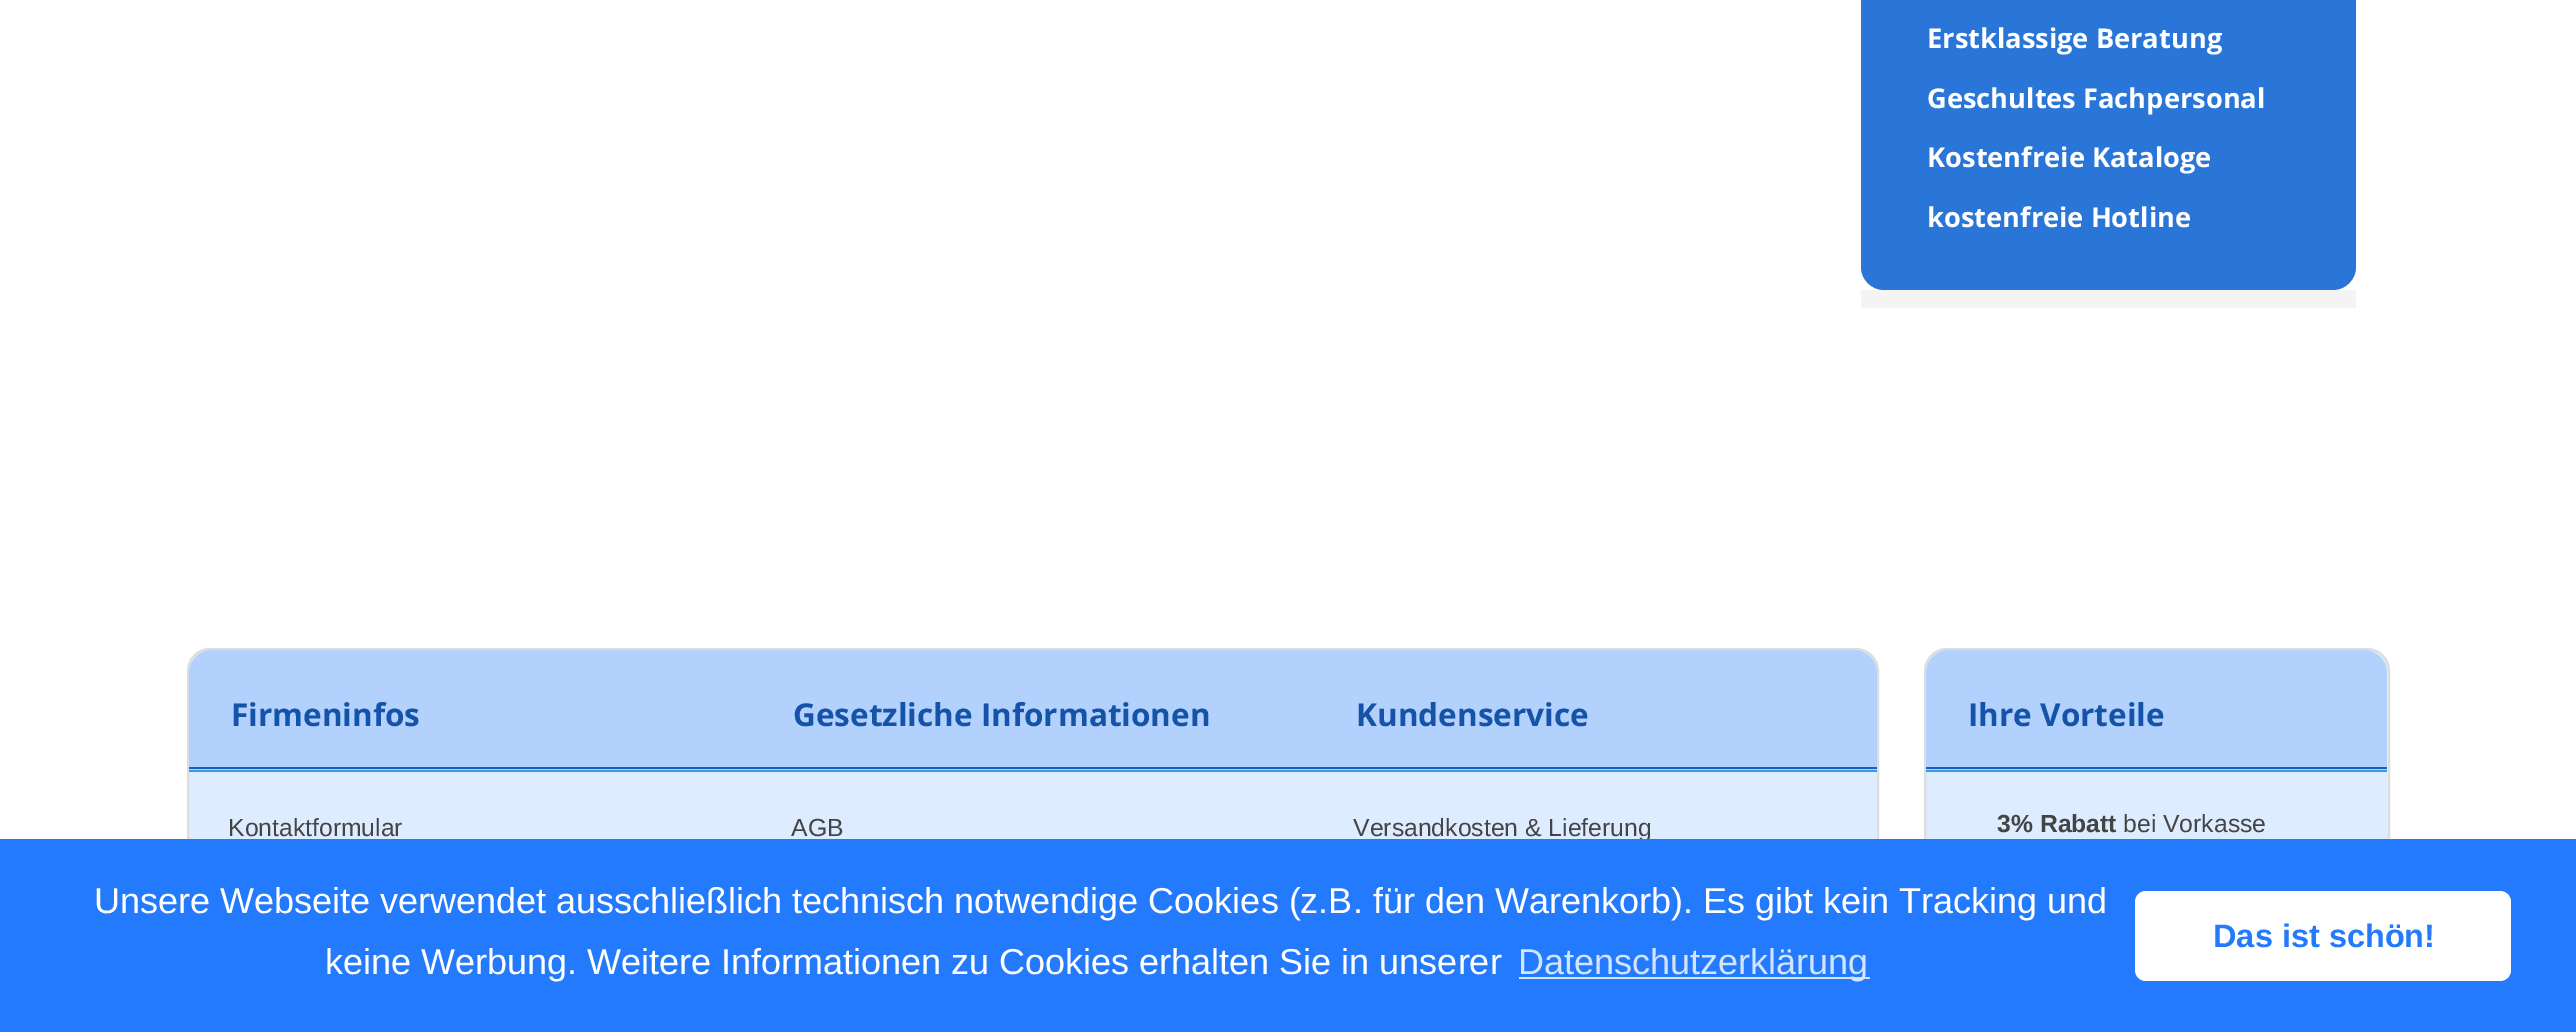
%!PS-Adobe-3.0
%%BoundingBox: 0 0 2576 1032
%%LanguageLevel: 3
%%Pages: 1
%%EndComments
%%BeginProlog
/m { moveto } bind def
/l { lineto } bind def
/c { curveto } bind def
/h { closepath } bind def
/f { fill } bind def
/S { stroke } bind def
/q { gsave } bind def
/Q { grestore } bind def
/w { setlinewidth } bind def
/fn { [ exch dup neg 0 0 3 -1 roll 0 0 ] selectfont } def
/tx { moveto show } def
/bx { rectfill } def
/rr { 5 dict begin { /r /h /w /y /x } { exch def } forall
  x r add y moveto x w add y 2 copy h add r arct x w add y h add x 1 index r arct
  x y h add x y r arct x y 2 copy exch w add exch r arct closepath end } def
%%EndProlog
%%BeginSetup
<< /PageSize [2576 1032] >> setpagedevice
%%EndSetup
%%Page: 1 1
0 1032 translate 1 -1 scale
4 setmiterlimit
1 setgray
0 0 2576 1032 bx
0.165 0.463 0.847 setrgbcolor
1861 -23 m 2356 -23 l 2356 267 l 2356 279.5 2345.5 290 2333 290 c 1884 290 l 1871.5 290 1861 279.5 1861 267 c h f
/OpenSans-Bold 27.25 fn
1 setgray
(Erstklassige Beratung) 1927 48 tx
(Geschultes Fachpersonal) 1927 108 tx
(Kostenfreie Kataloge) 1927 167 tx
(kostenfreie Hotline) 1927 227 tx
0.957 setgray
1861 290 495 18 bx
0.871 0.925 1 setrgbcolor
188 649 1690 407 22 rr q f Q
0.867 setgray
2 w
S
0.698 0.824 0.992 setrgbcolor
212 650 m 752 650 l 752 770 l 189 770 l 189 673 l 189 660.5 199.5 650 212 650 c h f
0.098 0.38 0.737 setrgbcolor
189 767 563 2 bx
/OpenSans-Bold 31.5 fn
0.082 0.325 0.659 setrgbcolor
(Firmeninfos) 231 726 tx
0.216 0.604 0.894 setrgbcolor
189 770 1688 2 bx
/LiberationSans-Regular 24.75 fn
0.267 setgray
(Kontaktformular) 228 836 tx
0.698 0.824 0.992 setrgbcolor
752 650 562 120 bx
0.098 0.38 0.737 setrgbcolor
752 767 562 2 bx
/OpenSans-Bold 31.5 fn
0.082 0.325 0.659 setrgbcolor
(Gesetzliche Informationen) 793 726 tx
/LiberationSans-Regular 24.75 fn
0.267 setgray
(AGB) 791 836 tx
0.698 0.824 0.992 setrgbcolor
1314 650 m 1854 650 l 1866.5 650 1877 660.5 1877 673 c 1877 770 l 1314 770 l h f
0.098 0.38 0.737 setrgbcolor
1314 767 563 2 bx
/OpenSans-Bold 31.5 fn
0.082 0.325 0.659 setrgbcolor
(Kundenservice) 1356 726 tx
/LiberationSans-Regular 24.75 fn
0.267 setgray
(Versandkosten & Lieferung) 1353 836 tx
0.871 0.925 1 setrgbcolor
1925 649 464 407 22 rr q f Q
0.867 setgray
S
0.698 0.824 0.992 setrgbcolor
1949 650 m 2364 650 l 2376.5 650 2387 660.5 2387 673 c 2387 770 l 1926 770 l 1926 673 l 1926 660.5 1936.5 650 1949 650 c h f
0.098 0.38 0.737 setrgbcolor
1926 767 461 2 bx
/OpenSans-Bold 31.5 fn
0.082 0.325 0.659 setrgbcolor
(Ihre Vorteile) 1968 726 tx
0.216 0.604 0.894 setrgbcolor
1926 770 461 2 bx
/LiberationSans-Bold 24.75 fn
0.267 setgray
(3% Rabatt) 1997 832 tx
/LiberationSans-Regular 24.75 fn
(bei Vorkasse) 2123 832 tx
0.137 0.478 0.988 setrgbcolor
0 839 2576 193 bx
/LiberationSans-Regular 36 fn
1 setgray
(Unsere Webseite verwendet ausschließlich technisch notwendige Cookies \(z.B. für den Warenkorb\). Es gibt kein Tracking und) 94 913 tx
(keine Werbung. Weitere Informationen zu Cookies erhalten Sie in unserer) 325 974 tx
0.827 0.894 0.996 setrgbcolor
1519 977 351 2 bx
(Datenschutzerklärung) 1518 974 tx
1 setgray
2135 891 376 90 11 rr f
/LiberationSans-Bold 32.5 fn
0.137 0.478 0.988 setrgbcolor
(Das ist schön!) 2213 947 tx
showpage
%%EOF
